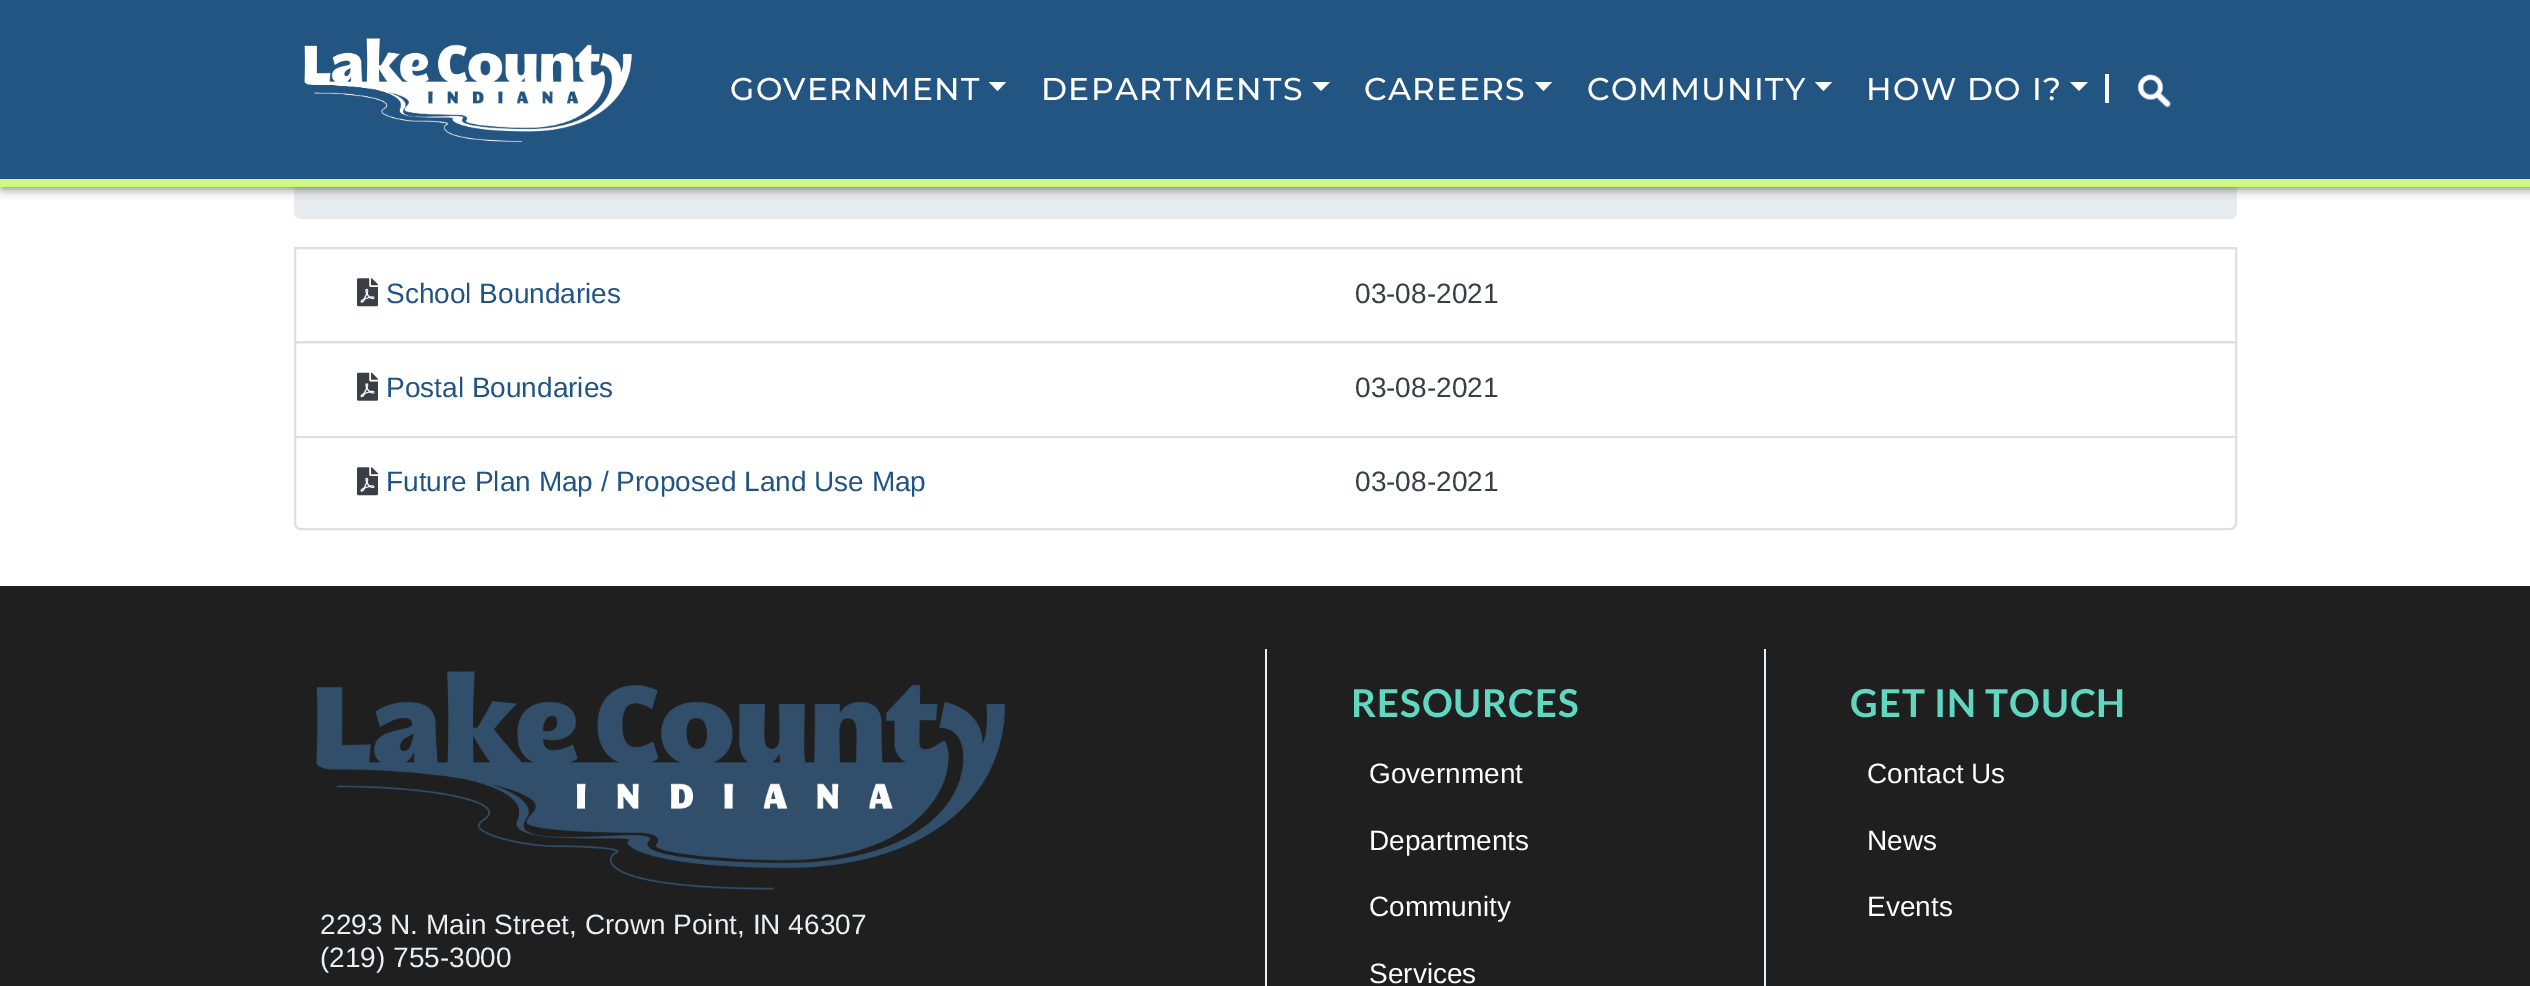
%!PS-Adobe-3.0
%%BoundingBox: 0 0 2530 986
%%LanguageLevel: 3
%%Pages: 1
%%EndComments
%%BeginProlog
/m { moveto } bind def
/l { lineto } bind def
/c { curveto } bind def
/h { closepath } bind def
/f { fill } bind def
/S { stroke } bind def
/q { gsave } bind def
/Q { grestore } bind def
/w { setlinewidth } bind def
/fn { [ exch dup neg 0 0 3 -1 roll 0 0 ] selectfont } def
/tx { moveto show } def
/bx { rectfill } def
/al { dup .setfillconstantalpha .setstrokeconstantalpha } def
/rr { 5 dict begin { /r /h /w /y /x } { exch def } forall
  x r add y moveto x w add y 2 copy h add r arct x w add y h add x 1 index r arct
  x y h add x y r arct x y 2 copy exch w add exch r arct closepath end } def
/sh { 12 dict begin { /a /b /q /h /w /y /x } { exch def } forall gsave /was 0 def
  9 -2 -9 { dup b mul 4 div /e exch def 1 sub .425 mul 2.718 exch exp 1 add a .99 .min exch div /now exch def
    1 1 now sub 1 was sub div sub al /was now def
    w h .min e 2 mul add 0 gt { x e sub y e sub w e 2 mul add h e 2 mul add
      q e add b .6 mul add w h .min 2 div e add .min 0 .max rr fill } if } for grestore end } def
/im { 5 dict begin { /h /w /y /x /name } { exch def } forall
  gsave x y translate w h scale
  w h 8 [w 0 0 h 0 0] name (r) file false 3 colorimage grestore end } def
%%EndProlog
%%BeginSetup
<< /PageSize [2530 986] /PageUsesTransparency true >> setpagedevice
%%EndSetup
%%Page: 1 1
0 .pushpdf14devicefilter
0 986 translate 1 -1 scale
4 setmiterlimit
1 setgray
0 0 2530 986 bx
0.914 0.925 0.937 setrgbcolor
294 96 1943 123 7 rr f
0 setgray
2 2 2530 187 0 5 0.5 sh
0.137 0.333 0.514 setrgbcolor
0 0 2530 179 bx
0.812 0.973 0.506 setrgbcolor
0 179 2530 8 bx
(image0.raw) 304 38 328 105 im
/Montserrat-Medium 31.5 fn
1 setgray
730 100 m 1.25 0 (GOVERNMENT) ashow
989 82 m 1006 82 l 997.5 91 l h f
1041 100 m 1.25 0 (DEPARTMENTS) ashow
1312.5 82 m 1330 82 l 1321 91 l h f
1364 100 m 1.25 0 (CAREERS) ashow
1535 82 m 1552 82 l 1543.5 91 l h f
1587 100 m 1.25 0 (COMMUNITY) ashow
1815 82 m 1832 82 l 1823.5 91 l h f
1866 100 m 1.25 0 (HOW DO I?) ashow
2070 82 m 2088 82 l 2079 91 l h f
2105 74 4 29 bx
(image1.raw) 2137 74 34 34 im
0.875 setgray
2 w
295 248 1941 94 rectstroke
(image2.raw) 357 278 21 29 im
/LiberationSans-Regular 28 fn
0.133 0.329 0.514 setrgbcolor
(School Boundaries) 386 303 tx
0.227 0.247 0.271 setrgbcolor
(03-08-2021) 1355 303 tx
0.875 setgray
295 342 1941 95 rectstroke
(image3.raw) 357 372 21 29 im
0.133 0.329 0.514 setrgbcolor
(Postal Boundaries) 386 397 tx
0.227 0.247 0.271 setrgbcolor
(03-08-2021) 1355 397 tx
1 setgray
295 437 m 2236 437 l 2236 523 l 2236 526.5 2233.5 529 2230 529 c 301 529 l 297.5 529 295 526.5 295 523 c h q f Q
0.875 setgray
S
(image2.raw) 357 467 21 29 im
0.133 0.329 0.514 setrgbcolor
(Future Plan Map / Proposed Land Use Map) 386 491 tx
0.227 0.247 0.271 setrgbcolor
(03-08-2021) 1355 491 tx
0.122 setgray
0 586 2530 400 bx
0.918 0.937 0.957 setrgbcolor
1265 649 2 337 bx
/Lato-Bold 38.5 fn
0.376 0.843 0.753 setrgbcolor
1351 717 m 0.9 0 (RESOURCES) ashow
/LiberationSans-Regular 28 fn
1 setgray
(Government) 1369 783 tx
(Departments) 1369 850 tx
(Community) 1369 916 tx
(Services) 1369 983 tx
0.918 0.937 0.957 setrgbcolor
1764 649 2 337 bx
/Lato-Bold 38.5 fn
0.376 0.843 0.753 setrgbcolor
1850 717 m 0.9 0 (GET IN TOUCH) ashow
/LiberationSans-Regular 28 fn
1 setgray
(Contact Us) 1867 783 tx
(News) 1867 850 tx
(Events) 1867 916 tx
(image4.raw) 316 671 690 219 im
0.918 0.937 0.957 setrgbcolor
(2293 N. Main Street, Crown Point, IN 46307) 320 934 tx
(\(219\) 755-3000) 320 967 tx
.poppdf14devicefilter showpage
%%EOF
